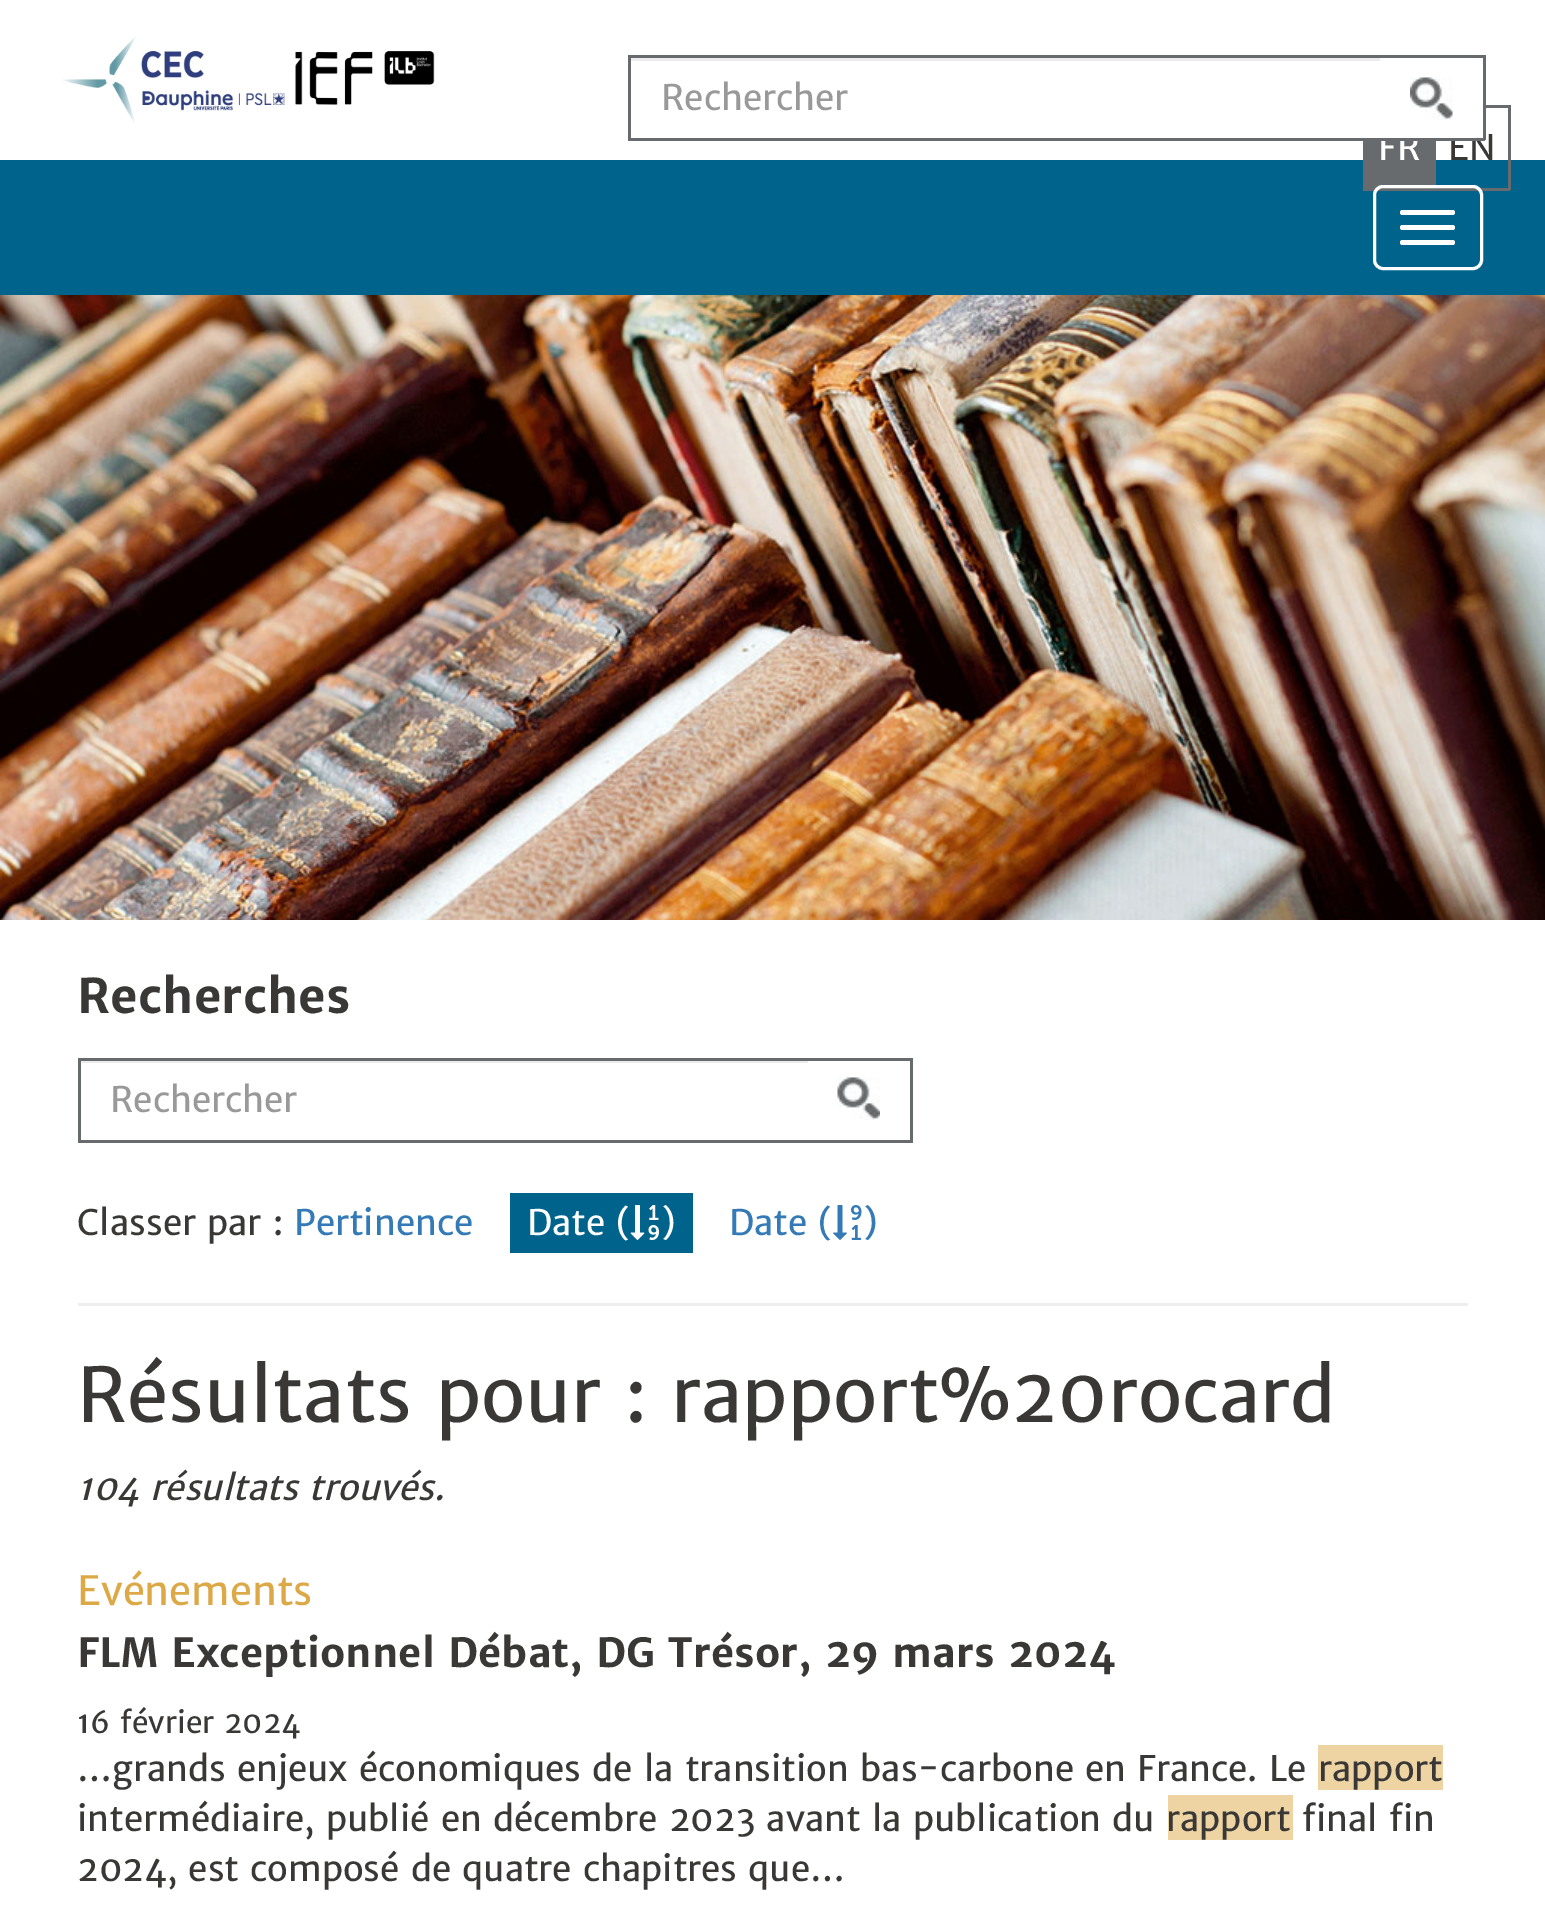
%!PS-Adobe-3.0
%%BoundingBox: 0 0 1545 1925
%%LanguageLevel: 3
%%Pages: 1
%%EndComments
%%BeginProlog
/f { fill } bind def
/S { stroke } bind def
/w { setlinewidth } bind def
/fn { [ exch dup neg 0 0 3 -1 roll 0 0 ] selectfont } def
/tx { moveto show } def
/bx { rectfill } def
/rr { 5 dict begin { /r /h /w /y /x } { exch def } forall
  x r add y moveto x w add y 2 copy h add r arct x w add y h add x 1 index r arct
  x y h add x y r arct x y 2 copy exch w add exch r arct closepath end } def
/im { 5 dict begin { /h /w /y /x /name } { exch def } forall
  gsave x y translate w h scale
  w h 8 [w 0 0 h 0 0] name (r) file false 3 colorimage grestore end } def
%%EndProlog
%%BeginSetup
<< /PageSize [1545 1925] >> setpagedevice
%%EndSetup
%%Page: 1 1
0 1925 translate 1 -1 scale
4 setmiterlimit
1 setgray
0 0 1545 1925 bx
(image0.raw) 62 36 373 88 im
/MerriweatherSans-Regular 35 fn
0.224 0.22 0.216 setrgbcolor
(EN) 1448 160 tx
1 setgray
1450 134 28 4 bx
0.408 0.42 0.431 setrgbcolor
628 55 857 3 bx
1483 55 3 85 bx
0 0.388 0.545 setrgbcolor
0 160 1545 135 bx
0.408 0.42 0.431 setrgbcolor
1366 141 67 47 bx
1 setgray
(FR) 1378 160 tx
0.408 0.42 0.431 setrgbcolor
628 138 857 3 bx
(image1.raw) 1410 77 43 43 im
0.925 setgray
630 58 750 3 bx
0.408 0.42 0.431 setrgbcolor
628 55 3 85 bx
0.6 setgray
(Rechercher) 661 110 tx
0.408 0.42 0.431 setrgbcolor
1486 105 24 3 bx
1508 105 3 85 bx
1433 188 77 3 bx
1433 141 3 49 bx
1363 188 72 3 bx
1363 141 3 49 bx
1 setgray
3 w
1374.5 186.5 107 82 8.5 rr S
1400 210 55 5 2.5 rr f
1400 225 55 5 2.5 rr f
1400 240 55 5 2.5 rr f
(image2.raw) 0 295 1545 625 im
/MerriweatherSans-Bold 47.5 fn
0.224 0.22 0.216 setrgbcolor
(Recherches) 77 1013 tx
0.408 0.42 0.431 setrgbcolor
78 1058 835 3 bx
910 1058 3 85 bx
78 1140 835 3 bx
(image3.raw) 837 1077 43 43 im
0.925 setgray
80 1061 728 2 bx
0.408 0.42 0.431 setrgbcolor
78 1058 3 85 bx
/MerriweatherSans-Regular 35 fn
0.6 setgray
(Rechercher) 110 1112 tx
0.224 0.22 0.216 setrgbcolor
(Classer par :) 77 1235 tx
0.2 0.478 0.718 setrgbcolor
(Pertinence) 294 1235 tx
0 0.388 0.545 setrgbcolor
510 1193 183 60 bx
1 setgray
(Date \() 527 1235 tx
(image4.raw) 630 1205 29 35 im
(\)) 661 1235 tx
0.2 0.478 0.718 setrgbcolor
(Date \() 729 1235 tx
(image5.raw) 833 1205 29 35 im
(\)) 863 1235 tx
0.933 setgray
78 1303 1390 3 bx
/MerriweatherSans-Regular 75 fn
0.224 0.22 0.216 setrgbcolor
(Résultats pour : rapport%20rocard) 77 1422 tx
/MerriweatherSans-Italic 35 fn
(104 résultats trouvés.) 77 1500 tx
/MerriweatherSans-Regular 40 fn
0.863 0.663 0.275 setrgbcolor
(Evénements) 77 1605 tx
/MerriweatherSans-Bold 40 fn
0.224 0.22 0.216 setrgbcolor
(FLM Exceptionnel Débat, DG Trésor, 29 mars 2024) 77 1667 tx
/MerriweatherSans-Regular 30 fn
(16 février 2024) 77 1733 tx
/MerriweatherSans-Regular 35 fn
(…grands enjeux économiques de la transition bas-carbone en France. Le) 77 1781 tx
0.929 0.831 0.635 setrgbcolor
1318 1745 125 45 bx
0.224 0.22 0.216 setrgbcolor
(rapport) 1318 1781 tx
(intermédiaire, publié en décembre 2023 avant la publication du) 77 1831 tx
0.929 0.831 0.635 setrgbcolor
1168 1795 125 45 bx
0.224 0.22 0.216 setrgbcolor
(rapport final fin) 1166 1831 tx
(2024, est composé de quatre chapitres que…) 77 1881 tx
showpage
%%EOF
